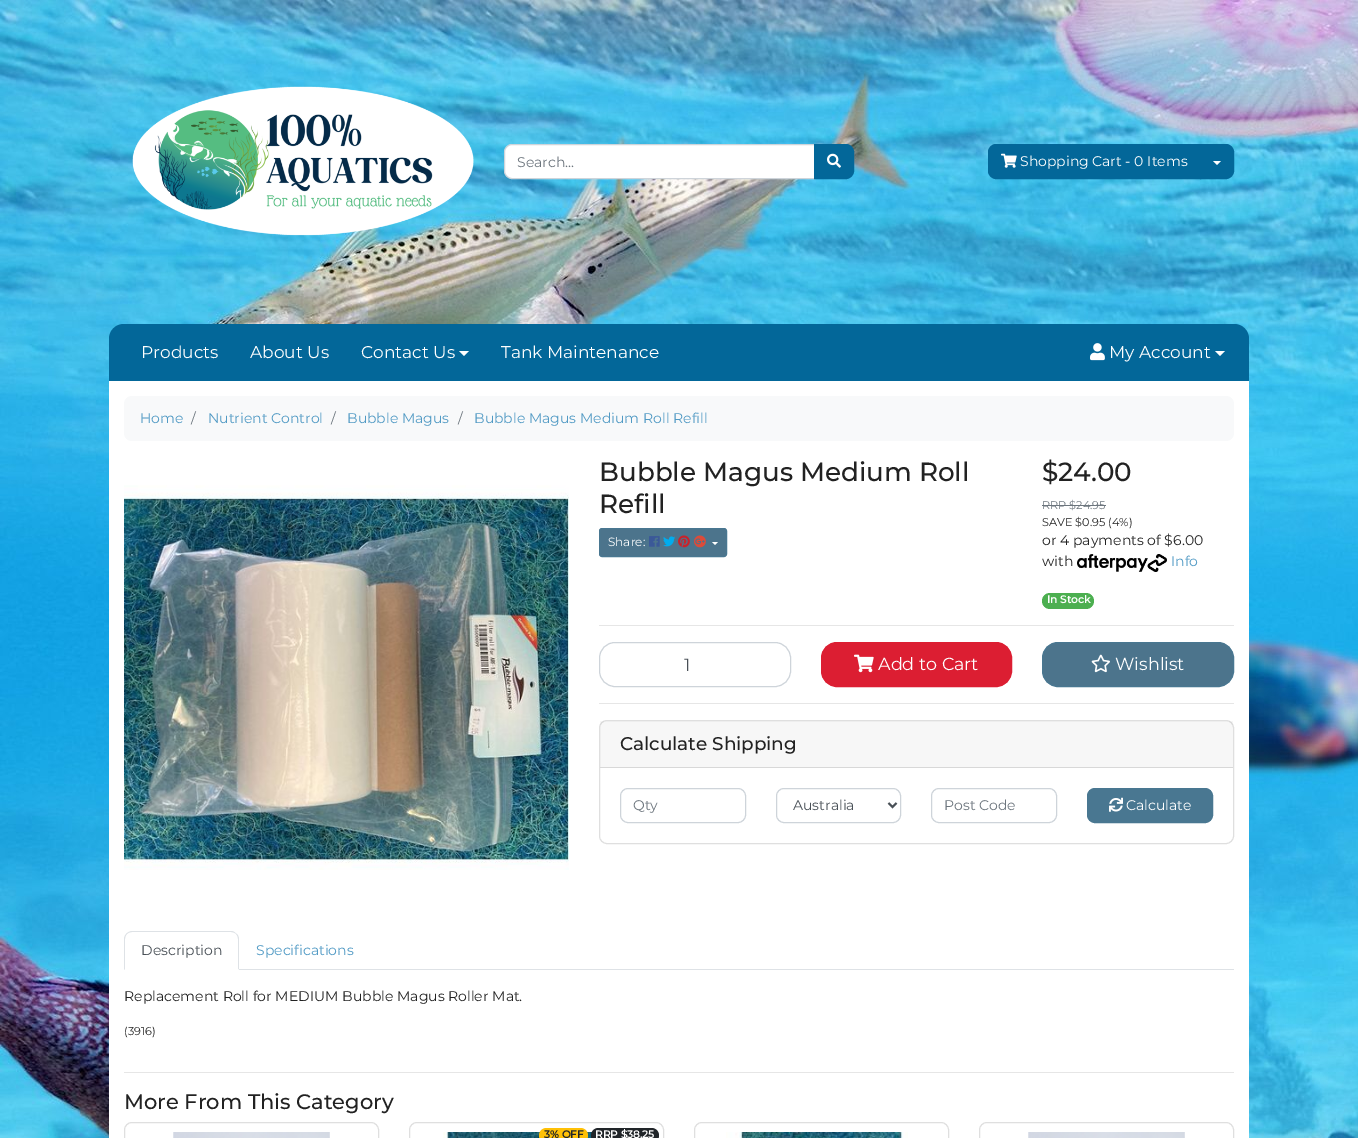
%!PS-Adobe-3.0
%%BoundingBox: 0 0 1358 1138
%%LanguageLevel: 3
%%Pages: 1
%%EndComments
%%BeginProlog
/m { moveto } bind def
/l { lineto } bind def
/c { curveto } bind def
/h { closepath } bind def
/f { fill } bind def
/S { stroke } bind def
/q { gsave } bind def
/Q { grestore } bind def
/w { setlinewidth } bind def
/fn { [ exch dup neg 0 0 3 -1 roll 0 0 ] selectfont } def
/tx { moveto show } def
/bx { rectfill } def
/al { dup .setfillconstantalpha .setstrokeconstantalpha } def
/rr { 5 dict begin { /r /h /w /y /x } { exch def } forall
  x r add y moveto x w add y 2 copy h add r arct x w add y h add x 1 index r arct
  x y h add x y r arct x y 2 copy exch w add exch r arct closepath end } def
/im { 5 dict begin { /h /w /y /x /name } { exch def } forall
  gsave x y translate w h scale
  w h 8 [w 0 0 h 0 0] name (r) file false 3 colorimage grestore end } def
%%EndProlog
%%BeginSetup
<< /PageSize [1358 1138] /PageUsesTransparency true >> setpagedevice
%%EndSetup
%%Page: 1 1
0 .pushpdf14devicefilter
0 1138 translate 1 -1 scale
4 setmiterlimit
1 setgray
0 0 1358 1138 bx
(image0.raw) 0 0 1358 1138 im
(image1.raw) 132 86 342 150 im
512 144.5 m 814.5 144.5 l 814.5 178.5 l 512 178.5 l 508 178.5 504.5 175 504.5 171 c 504.5 152 l 504.5 148 508 144.5 512 144.5 c h q f Q
0.808 0.831 0.855 setrgbcolor
S
/Montserrat-Regular 14 fn
0.424 0.459 0.49 setrgbcolor
(Search...) 517 167 tx
0.012 0.404 0.6 setrgbcolor
814.5 144.5 m 846 144.5 l 850 144.5 853.5 148 853.5 152 c 853.5 171 l 853.5 175 850 178.5 846 178.5 c 814.5 178.5 l h q f Q
S
(image2.raw) 827 153 14 15 im
996 144.5 m 1200.5 144.5 l 1200.5 178.5 l 996 178.5 l 992 178.5 988.5 175 988.5 171 c 988.5 152 l 988.5 148 992 144.5 996 144.5 c h q f Q
S
(image3.raw) 1001 153 16 15 im
1 setgray
(Shopping Cart - 0 Items) 1020 166 tx
0.012 0.404 0.6 setrgbcolor
1200.5 144.5 m 1226 144.5 l 1230 144.5 1233.5 148 1233.5 152 c 1233.5 171 l 1233.5 175 1230 178.5 1226 178.5 c 1200.5 178.5 l h q f Q
S
1 setgray
1213 161 m 1221 161 l 1217 165 l h f
0.012 0.404 0.6 setrgbcolor
124 324 m 1234 324 l 1242.5 324 1249 330.5 1249 339 c 1249 381 l 109 381 l 109 339 l 109 330.5 115.5 324 124 324 c h f
/Montserrat-Regular 17 fn
1 setgray
(Products) 141 358 tx
(About Us) 250 358 tx
(Contact Us) 361 358 tx
459 351 m 469 351 l 464 356 l h f
(Tank Maintenance) 501 358 tx
(image4.raw) 1090 343 15 18 im
(My Account) 1109 358 tx
1215 351 m 1225 351 l 1220 356 l h f
109 381 1140 757 bx
0.973 0.976 0.98 setrgbcolor
124 396 1110 45 8 rr f
/Montserrat-Regular 14 fn
0.318 0.604 0.769 setrgbcolor
(Home) 140 423 tx
0.424 0.459 0.49 setrgbcolor
(/) 191 423 tx
0.318 0.604 0.769 setrgbcolor
(Nutrient Control) 208 423 tx
0.424 0.459 0.49 setrgbcolor
(/) 331 423 tx
0.318 0.604 0.769 setrgbcolor
(Bubble Magus) 347 423 tx
0.424 0.459 0.49 setrgbcolor
(/) 458 423 tx
0.318 0.604 0.769 setrgbcolor
(Bubble Magus Medium Roll Refill) 474 423 tx
(image5.raw) 124 485 445 385 im
/Montserrat-Medium 26.25 fn
0.133 setgray
(Bubble Magus Medium Roll) 599 481 tx
(Refill) 599 513 tx
0.298 0.455 0.549 setrgbcolor
599.5 528.5 127 28 2.5 rr q f Q
0.286 0.467 0.569 setrgbcolor
S
/Montserrat-Regular 12 fn
1 setgray
(Share:) 608 546 tx
(image6.raw) 649 536 11 11 im
(image7.raw) 663 536 12 11 im
(image8.raw) 678 535 12 13 im
(image9.raw) 694 535 12 13 im
712 542 m 718 542 l 715 545 l h f
/Montserrat-Medium 26.25 fn
0.133 setgray
($24.00) 1042 481 tx
/Montserrat-Regular 11.25 fn
0.424 0.459 0.49 setrgbcolor
(RRP $24.95) 1042 509 tx
1042 505 64 1 bx
0.133 setgray
(SAVE $0.95 \(4%\)) 1042 526 tx
/Montserrat-Regular 14 fn
(or 4 payments of $6.00) 1042 545 tx
(with) 1042 566 tx
(image10.raw) 1077 554 90 18 im
0.318 0.604 0.769 setrgbcolor
(Info) 1171 566 tx
0.298 0.686 0.314 setrgbcolor
1042 593 52 16 8 rr f
/Montserrat-Bold 10.5 fn
1 setgray
(In Stock) 1047 603 tx
0.902 setgray
599 625 635 1 bx
0.808 0.831 0.855 setrgbcolor
599.5 642.5 191 44 15.5 rr S
/Montserrat-Regular 17.5 fn
0.286 0.314 0.341 setrgbcolor
(1) 684 671 tx
0.863 0.118 0.196 setrgbcolor
821.5 642.5 190 44 15.5 rr q f Q
S
(image11.raw) 854 654 20 19 im
1 setgray
(Add to Cart) 878 670 tx
0.298 0.455 0.549 setrgbcolor
1042.5 642.5 191 44 15.5 rr q f Q
0.286 0.467 0.569 setrgbcolor
S
(image12.raw) 1091 654 19 19 im
1 setgray
(Wishlist) 1115 670 tx
0.902 setgray
599 703 635 1 bx
0.875 setgray
599.5 720.5 634 123 7.5 rr S
0.03 al
0 setgray
600 721 633 46 bx
1 al
0.847 setgray
600 767 633 1 bx
/Montserrat-Medium 18.4 fn
0.133 setgray
(Calculate Shipping) 620 750 tx
0.808 0.831 0.855 setrgbcolor
620.5 788.5 125 34 7.5 rr S
/Montserrat-Regular 14 fn
0.424 0.459 0.49 setrgbcolor
(Qty) 633 810 tx
0.808 0.831 0.855 setrgbcolor
776.5 788.5 124 34 7.5 rr S
0.286 0.314 0.341 setrgbcolor
2 w
888.5 803 m 892.5 807 l 896.5 803 l S
(Australia) 793 810 tx
0.808 0.831 0.855 setrgbcolor
1 w
931.5 788.5 125 34 7.5 rr S
0.424 0.459 0.49 setrgbcolor
(Post Code) 944 810 tx
0.286 0.467 0.569 setrgbcolor
1087.5 788.5 125 34 7.5 rr q f Q
S
(image13.raw) 1109 797 14 15 im
1 setgray
(Calculate) 1126 810 tx
0.871 0.886 0.902 setrgbcolor
239 969 995 1 bx
132 931 m 130 931 128 932 126 934 c 127 934 l 128 933 130 932 132 932 c 231 932 l 233 932 235 933 236 934 c 235 932 233 931 231 931 c h f
239 970 m 239 939 l 239 937 238 935 236.5 933.5 c 236 934 l 237 935 238 937 238 939 c 238 969 l h f
1 setgray
239 970 m 238 969 l 125 969 l 124 970 l h f
0.871 0.886 0.902 setrgbcolor
124 970 m 125 969 l 125 939 l 125 937 126 935 127 934 c 126.5 933.5 l 125 935 124 937 124 939 c h f
0.286 0.314 0.341 setrgbcolor
(Description) 141 955 tx
0.318 0.604 0.769 setrgbcolor
(Specifications) 256 955 tx
0.133 setgray
(Replacement Roll for MEDIUM Bubble Magus Roller Mat.) 124 1001 tx
/Montserrat-Regular 11.25 fn
(\(3916\)) 124 1035 tx
0.902 setgray
124 1072 1110 1 bx
/Montserrat-Medium 21 fn
0.133 setgray
(More From This Category) 124 1109 tx
0.875 setgray
124.5 1122.5 254 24 7.5 rr S
(image14.raw) 173 1132 157 6 im
409.5 1122.5 254 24 7.5 rr S
(image15.raw) 443 1132 149 6 im
1 0.757 0.027 setrgbcolor
539 1128 49 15 7.5 rr f
/Montserrat-Bold 10.5 fn
0.129 0.145 0.161 setrgbcolor
(3% OFF) 544 1138 tx
591 1128 68 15 7.5 rr f
1 setgray
(RRP $38.25) 595 1138 tx
0.875 setgray
694.5 1122.5 254 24 7.5 rr S
(image16.raw) 726 1132 182 6 im
979.5 1122.5 254 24 7.5 rr S
(image14.raw) 1028 1132 157 6 im
.poppdf14devicefilter showpage
%%EOF
